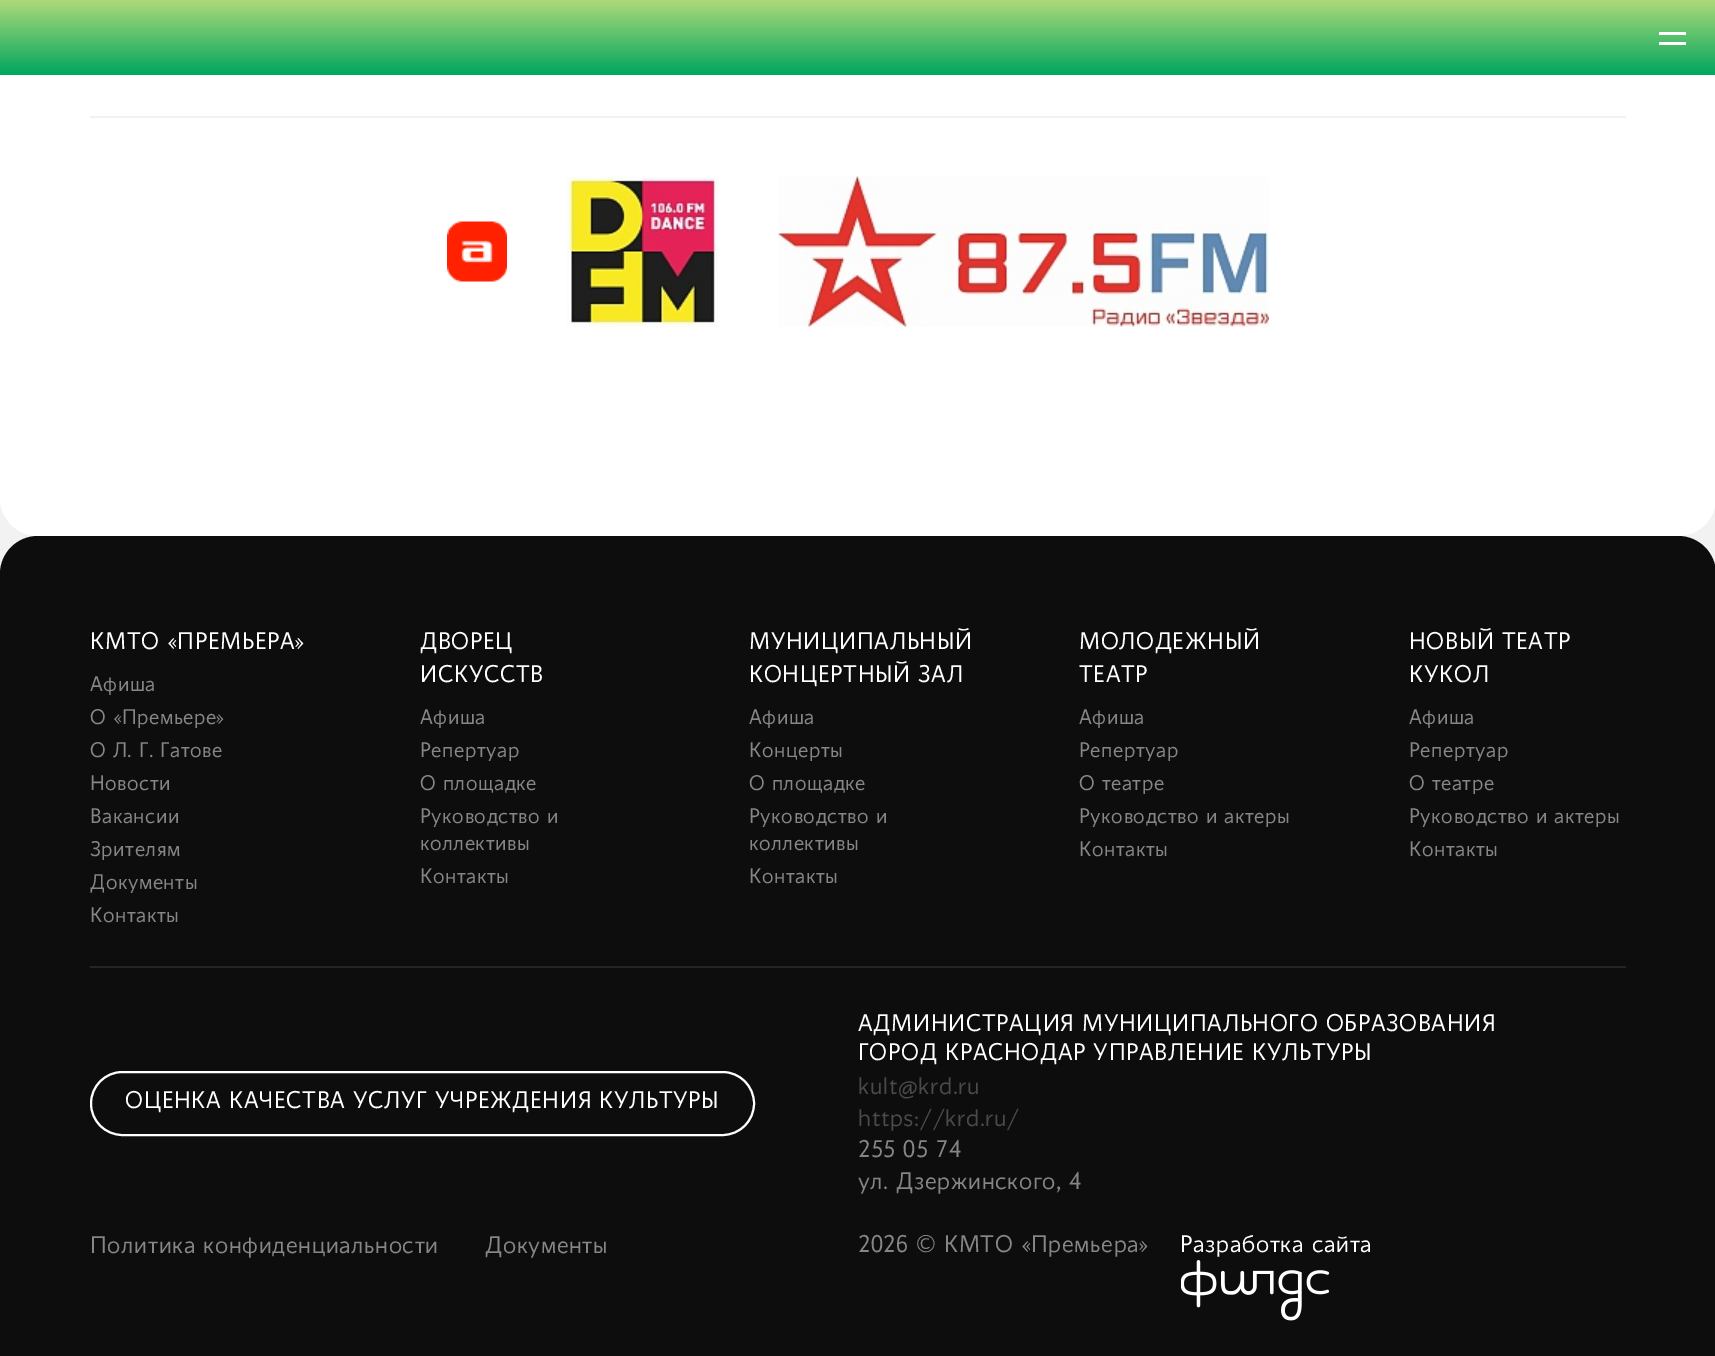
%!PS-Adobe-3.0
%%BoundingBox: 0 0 1715 1356
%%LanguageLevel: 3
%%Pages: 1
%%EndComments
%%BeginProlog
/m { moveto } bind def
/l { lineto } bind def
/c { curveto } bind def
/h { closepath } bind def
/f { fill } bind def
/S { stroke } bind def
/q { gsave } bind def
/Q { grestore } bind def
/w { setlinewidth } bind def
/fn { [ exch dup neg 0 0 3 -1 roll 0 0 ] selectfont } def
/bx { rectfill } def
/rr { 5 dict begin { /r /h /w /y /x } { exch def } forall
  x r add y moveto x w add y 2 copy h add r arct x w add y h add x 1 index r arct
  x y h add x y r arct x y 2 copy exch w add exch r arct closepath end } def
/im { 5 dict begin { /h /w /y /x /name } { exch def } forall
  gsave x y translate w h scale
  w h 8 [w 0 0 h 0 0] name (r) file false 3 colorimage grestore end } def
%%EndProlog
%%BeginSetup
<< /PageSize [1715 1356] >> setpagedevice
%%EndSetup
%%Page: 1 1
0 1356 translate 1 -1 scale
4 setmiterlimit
0.949 setgray
0 0 1715 1356 bx
1 setgray
0 -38 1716 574 38 rr f
q 0 0 m 1715 0 l 1715 75 l 0 75 l h clip newpath
<< /ShadingType 2 /ColorSpace /DeviceRGB /Coords [858 0 858 75] /Extend [true true] /Function << /FunctionType 2 /Domain [0 1] /C0 [0.678 0.855 0.475] /C1 [0 0.651 0.373] /N 1 >> >> shfill Q
1659 32 27 3 bx
1659 42 27 3 bx
0.949 setgray
90 116 1536 2 bx
(image0.raw) 447 221 60 61 im
(image1.raw) 567 176 152 151 im
(image2.raw) 778 176 491 151 im
0.051 setgray
38 536 m 1678 536 l 1699 536 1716 553 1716 574 c 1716 1356 l 0 1356 l 0 574 l 0 553 17 536 38 536 c h f
/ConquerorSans-Light 24 fn
1 setgray
90 649 m 0.7 0 (КМТО «ПРЕМЬЕРА») ashow
/ConquerorSans-Light 21 fn
0.525 setgray
90 691 m 0.6 0 (Афиша) ashow
90 724 m 0.6 0 (О «Премьере») ashow
90 757 m 0.6 0 (О Л. Г. Гатове) ashow
90 790 m 0.6 0 (Новости) ashow
90 823 m 0.6 0 (Вакансии) ashow
90 856 m 0.6 0 (Зрителям) ashow
90 889 m 0.6 0 (Документы) ashow
90 922 m 0.6 0 (Контакты) ashow
/ConquerorSans-Light 24 fn
1 setgray
420 649 m 0.7 0 (ДВОРЕЦ) ashow
420 682 m 0.7 0 (ИСКУССТВ) ashow
/ConquerorSans-Light 21 fn
0.525 setgray
420 724 m 0.6 0 (Афиша) ashow
420 757 m 0.6 0 (Репертуар) ashow
420 790 m 0.6 0 (О площадке) ashow
420 823 m 0.6 0 (Руководство и) ashow
420 850 m 0.6 0 (коллективы) ashow
420 883 m 0.6 0 (Контакты) ashow
/ConquerorSans-Light 24 fn
1 setgray
749 649 m 0.7 0 (МУНИЦИПАЛЬНЫЙ) ashow
749 682 m 0.7 0 (КОНЦЕРТНЫЙ ЗАЛ) ashow
/ConquerorSans-Light 21 fn
0.525 setgray
749 724 m 0.6 0 (Афиша) ashow
749 757 m 0.6 0 (Концерты) ashow
749 790 m 0.6 0 (О площадке) ashow
749 823 m 0.6 0 (Руководство и) ashow
749 850 m 0.6 0 (коллективы) ashow
749 883 m 0.6 0 (Контакты) ashow
/ConquerorSans-Light 24 fn
1 setgray
1079 649 m 0.7 0 (МОЛОДЕЖНЫЙ) ashow
1079 682 m 0.7 0 (ТЕАТР) ashow
/ConquerorSans-Light 21 fn
0.525 setgray
1079 724 m 0.6 0 (Афиша) ashow
1079 757 m 0.6 0 (Репертуар) ashow
1079 790 m 0.6 0 (О театре) ashow
1079 823 m 0.6 0 (Руководство и актеры) ashow
1079 856 m 0.6 0 (Контакты) ashow
/ConquerorSans-Light 24 fn
1 setgray
1409 649 m 0.7 0 (НОВЫЙ ТЕАТР) ashow
1409 682 m 0.7 0 (КУКОЛ) ashow
/ConquerorSans-Light 21 fn
0.525 setgray
1409 724 m 0.6 0 (Афиша) ashow
1409 757 m 0.6 0 (Репертуар) ashow
1409 790 m 0.6 0 (О театре) ashow
1409 823 m 0.6 0 (Руководство и актеры) ashow
1409 856 m 0.6 0 (Контакты) ashow
0.145 setgray
90 966 1536 2 bx
1 setgray
2 w
91 1072 663 63 31.5 rr S
/ConquerorSans-Light 24 fn
125 1108 m 0.7 0 (ОЦЕНКА КАЧЕСТВА УСЛУГ УЧРЕЖДЕНИЯ КУЛЬТУРЫ) ashow
858 1031 m 0.7 0 (АДМИНИСТРАЦИЯ МУНИЦИПАЛЬНОГО ОБРАЗОВАНИЯ) ashow
858 1060 m 0.7 0 (ГОРОД КРАСНОДАР УПРАВЛЕНИЕ КУЛЬТУРЫ) ashow
0.29 setgray
858 1094 m 0.7 0 (kult@krd.ru) ashow
858 1126 m 0.7 0 (https://krd.ru/) ashow
0.525 setgray
858 1157 m 0.7 0 (255 05 74) ashow
858 1189 m 0.7 0 (ул. Дзержинского, 4) ashow
90 1253 m 0.7 0 (Политика конфиденциальности) ashow
485 1253 m 0.7 0 (Документы) ashow
858 1252 m 0.7 0 (2026 © КМТО «Премьера») ashow
1 setgray
1180 1252 m 0.7 0 (Разработка сайта) ashow
(image3.raw) 1181 1260 149 61 im
showpage
%%EOF
